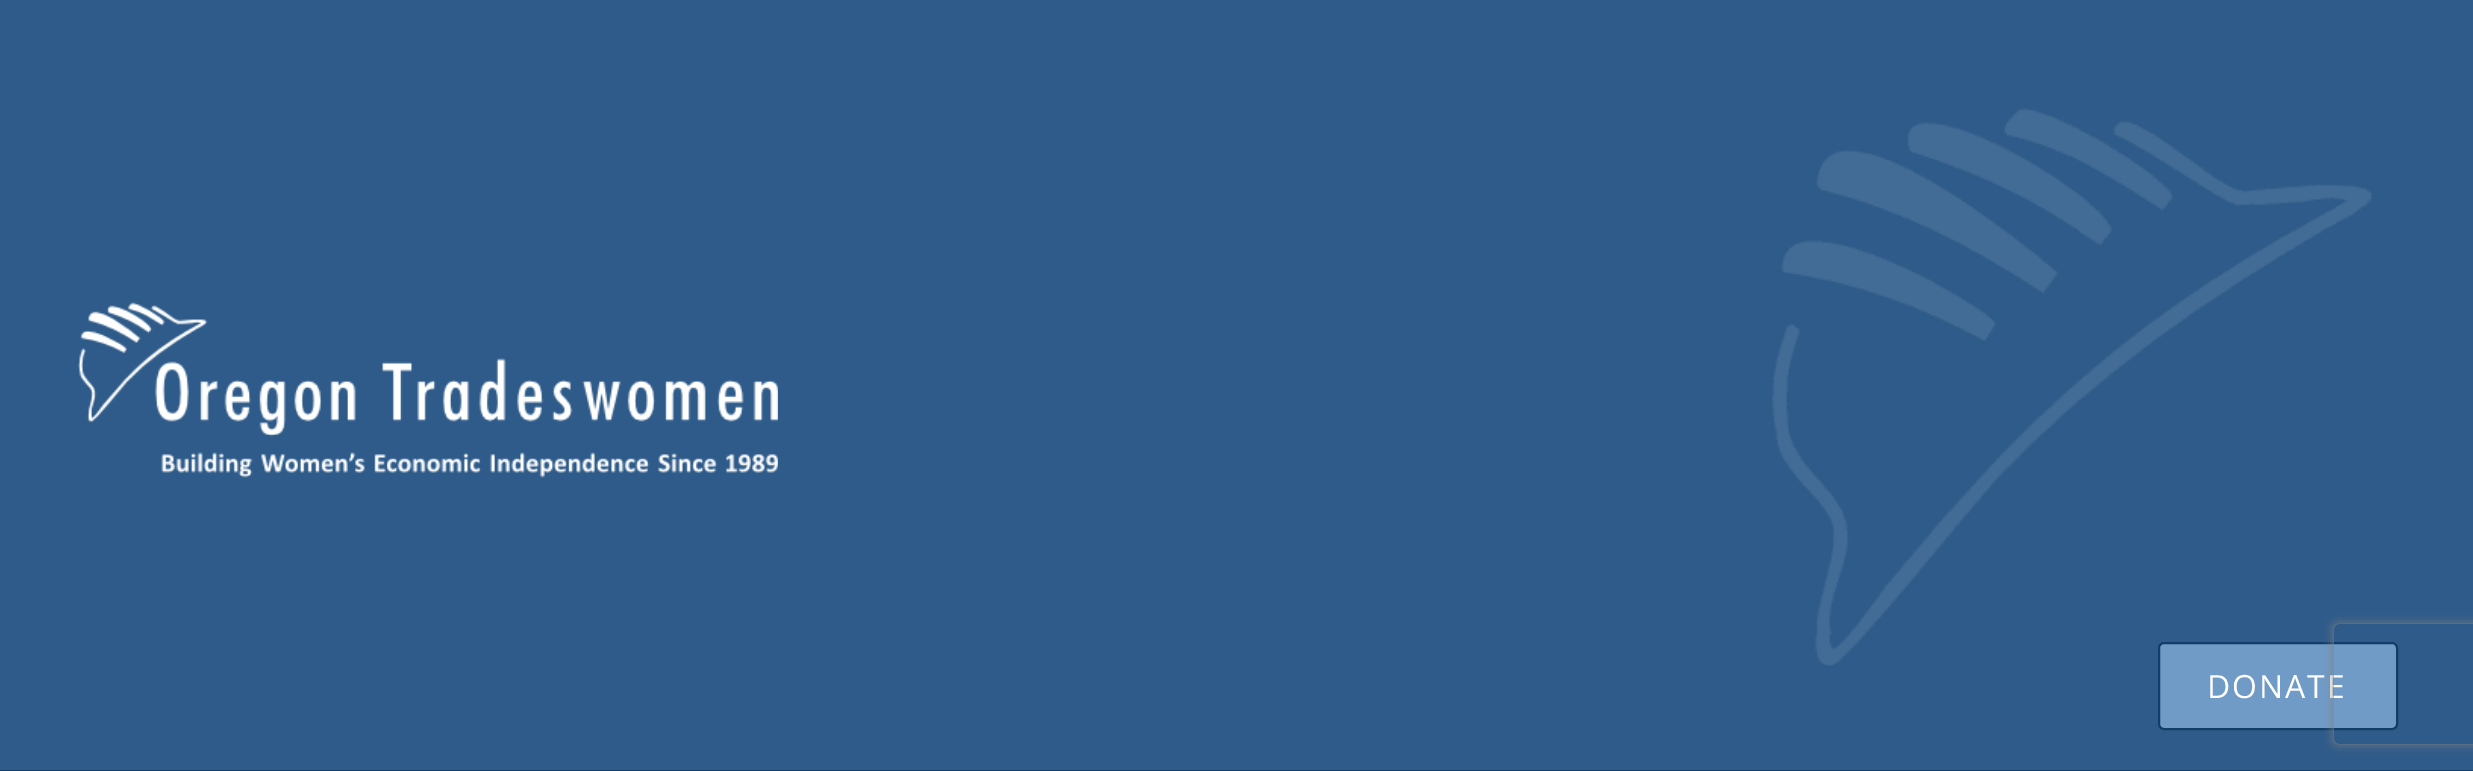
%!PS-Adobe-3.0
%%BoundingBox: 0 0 2473 771
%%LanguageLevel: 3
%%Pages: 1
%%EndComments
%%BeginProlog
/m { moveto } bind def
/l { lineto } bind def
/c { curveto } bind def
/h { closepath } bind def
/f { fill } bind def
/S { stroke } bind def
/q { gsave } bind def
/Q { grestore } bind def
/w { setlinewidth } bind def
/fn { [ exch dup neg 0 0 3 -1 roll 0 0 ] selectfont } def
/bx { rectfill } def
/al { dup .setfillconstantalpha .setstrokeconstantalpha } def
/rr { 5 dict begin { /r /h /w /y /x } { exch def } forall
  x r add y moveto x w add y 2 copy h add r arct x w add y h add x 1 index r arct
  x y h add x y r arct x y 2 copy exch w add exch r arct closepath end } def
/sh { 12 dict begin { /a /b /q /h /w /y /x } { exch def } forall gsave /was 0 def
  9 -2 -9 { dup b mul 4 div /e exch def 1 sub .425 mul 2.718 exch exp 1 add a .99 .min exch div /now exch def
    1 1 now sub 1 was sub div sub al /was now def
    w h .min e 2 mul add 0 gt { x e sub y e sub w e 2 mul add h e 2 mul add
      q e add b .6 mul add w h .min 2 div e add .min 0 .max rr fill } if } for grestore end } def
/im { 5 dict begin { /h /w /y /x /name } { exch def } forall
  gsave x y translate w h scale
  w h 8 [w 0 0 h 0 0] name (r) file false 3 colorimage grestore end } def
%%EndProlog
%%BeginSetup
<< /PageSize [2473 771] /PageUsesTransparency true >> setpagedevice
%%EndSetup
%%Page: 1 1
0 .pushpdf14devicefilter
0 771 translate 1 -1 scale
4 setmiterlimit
0.18 0.357 0.537 setrgbcolor
0 0 2473 771 bx
(image0.raw) 78 302 700 176 im
(image1.raw) 1772 108 601 558 im
0.435 0.608 0.776 setrgbcolor
2159 643 238 86 5 rr q f Q
0.075 0.239 0.412 setrgbcolor
2 w
S
/OpenSans-Regular 32 fn
1 setgray
2207 698 m 2 0 (DONATE) ashow
0.075 0.239 0.412 setrgbcolor
0 770 2473 1 bx
q
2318 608 m 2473 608 l 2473 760 l 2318 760 l h 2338 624 m 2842 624 l 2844 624 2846 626 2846 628 c 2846 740 l 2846 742 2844 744 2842 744 c 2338 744 l 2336 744 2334 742 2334 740 c 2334 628 l 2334 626 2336 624 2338 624 c h eoclip newpath
0.502 setgray
2334 624 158 120 4 5 1 sh
Q
.poppdf14devicefilter showpage
%%EOF
